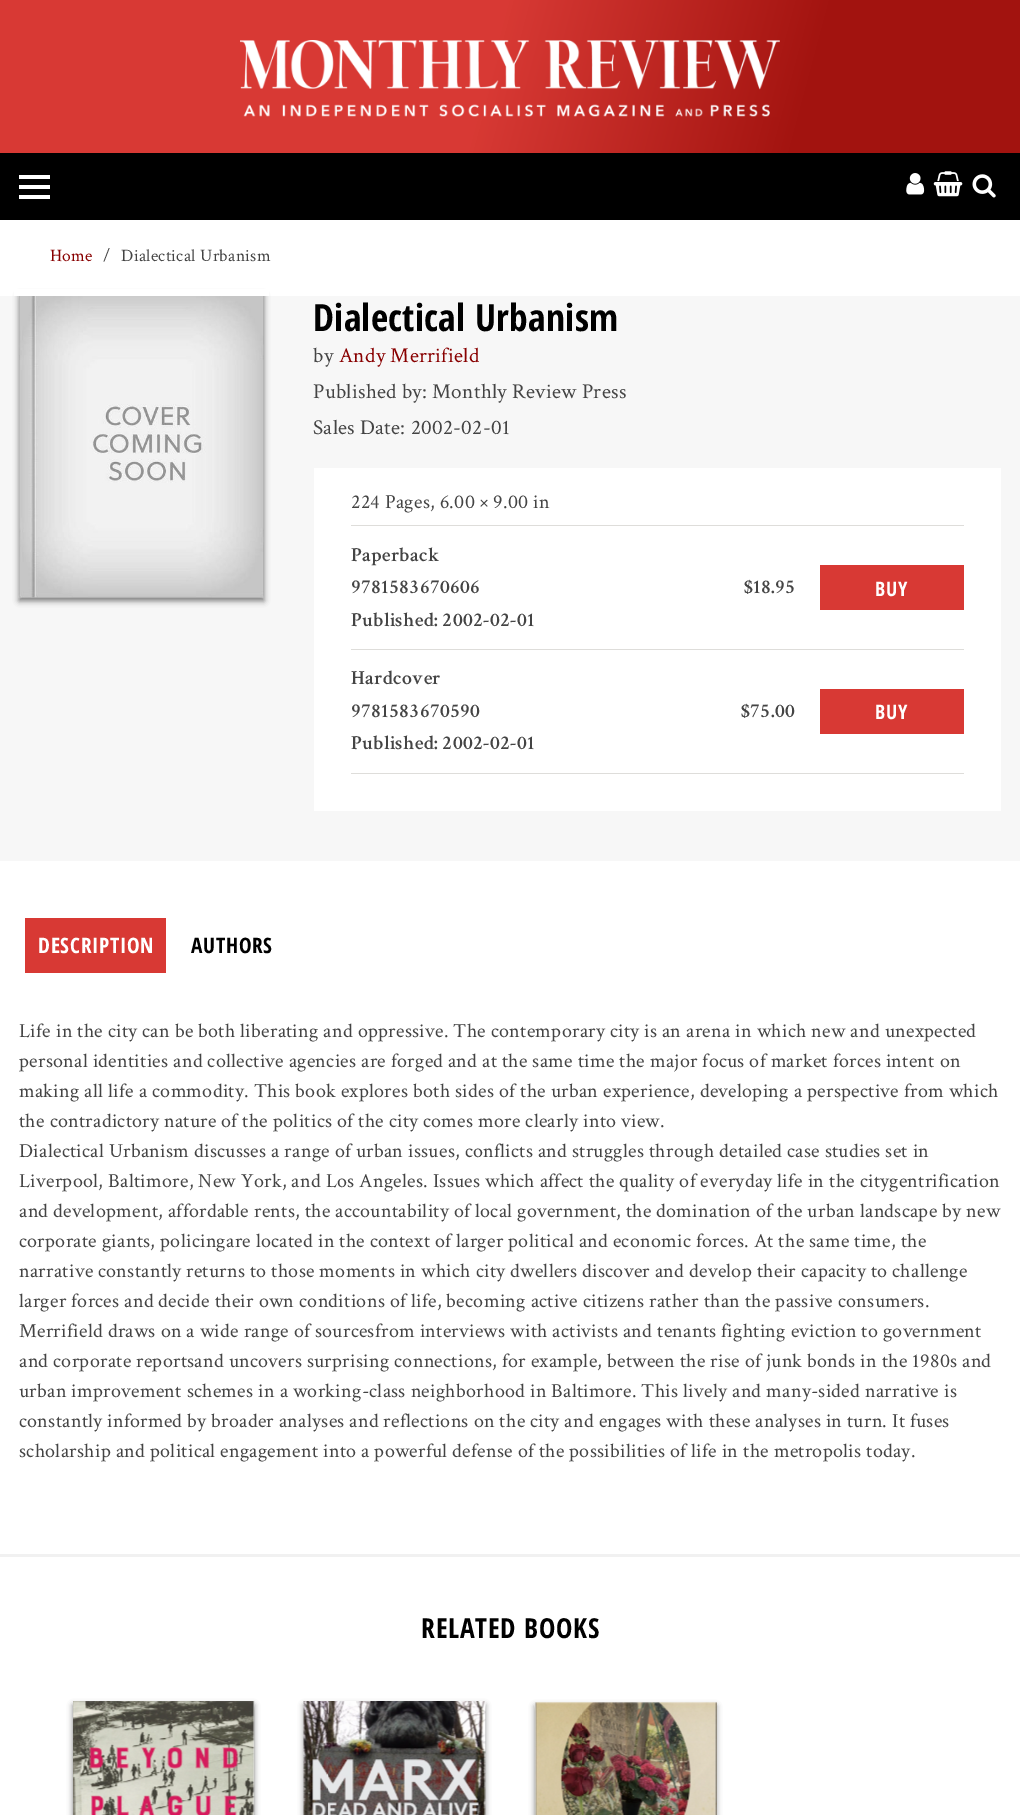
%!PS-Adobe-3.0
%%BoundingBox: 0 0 1020 1815
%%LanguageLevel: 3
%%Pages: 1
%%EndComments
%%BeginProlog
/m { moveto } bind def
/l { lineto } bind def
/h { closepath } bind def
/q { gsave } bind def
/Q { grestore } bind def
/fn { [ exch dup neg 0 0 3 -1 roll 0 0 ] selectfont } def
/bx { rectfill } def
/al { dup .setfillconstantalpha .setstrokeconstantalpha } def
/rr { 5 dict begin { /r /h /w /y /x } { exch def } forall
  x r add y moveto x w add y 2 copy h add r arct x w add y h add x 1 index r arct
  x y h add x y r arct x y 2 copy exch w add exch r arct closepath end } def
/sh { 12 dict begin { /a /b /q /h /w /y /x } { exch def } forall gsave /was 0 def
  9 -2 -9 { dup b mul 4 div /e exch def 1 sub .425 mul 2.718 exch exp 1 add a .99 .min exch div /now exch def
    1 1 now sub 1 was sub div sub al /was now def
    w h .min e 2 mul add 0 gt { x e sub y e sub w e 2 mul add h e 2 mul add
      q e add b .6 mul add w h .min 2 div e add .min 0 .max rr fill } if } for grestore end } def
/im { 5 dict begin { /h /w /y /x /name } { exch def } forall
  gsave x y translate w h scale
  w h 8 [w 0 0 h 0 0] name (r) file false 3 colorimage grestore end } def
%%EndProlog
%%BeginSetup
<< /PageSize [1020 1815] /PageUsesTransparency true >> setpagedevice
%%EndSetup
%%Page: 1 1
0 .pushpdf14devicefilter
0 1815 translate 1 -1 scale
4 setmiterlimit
1 setgray
0 0 1020 1815 bx
q 0 0 m 1020 0 l 1020 153 l 0 153 l h clip newpath
<< /ShadingType 2 /ColorSpace /DeviceRGB /Coords [15 -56 1005 209] /Extend [true true] /Function << /FunctionType 3 /Domain [0 1] /Functions [<< /FunctionType 2 /Domain [0 1] /C0 [0.847 0.224 0.204] /C1 [0.847 0.224 0.204] /N 1 >> << /FunctionType 2 /Domain [0 1] /C0 [0.847 0.224 0.204] /C1 [0.635 0.075 0.059] /N 1 >> << /FunctionType 2 /Domain [0 1] /C0 [0.635 0.075 0.059] /C1 [0.635 0.075 0.059] /N 1 >>] /Bounds [0.48 0.79] /Encode [0 1 0 1 0 1] >> >> shfill Q
(image0.raw) 240 40 540 77 im
0 setgray
0 153 1020 67 bx
1 setgray
19 185 31 4 bx
19 175 31 4 bx
19 195 31 4 bx
(image1.raw) 906 173 19 22 im
(image2.raw) 933 171 30 26 im
(image3.raw) 972 174 24 24 im
0.969 setgray
0 296 1020 565 bx
/CrimsonText-Regular 17.5 fn
0.533 0 0 setrgbcolor
50 261 m 0.29 0 (Home) ashow
0.267 setgray
103 261 m 0.29 0 (/) ashow
121 261 m 0.29 0 (Dialectical Urbanism) ashow
0 setgray
19 295 245 306 0 3 0.5 sh
1 setgray
14 289 255 7 bx
(image4.raw) 18 296 246 302 im
/OpenSansCondensed-Bold 37.5 fn
0 setgray
313 331 m 0.29 0 (Dialectical Urbanism) ashow
/CrimsonText-Regular 21.25 fn
0.267 setgray
313 362 m 0.29 0 (by) ashow
0.533 0 0 setrgbcolor
339 362 m 0.29 0 (Andy Merrifield) ashow
0.267 setgray
313 398 m 0.29 0 (Published by: Monthly Review Press) ashow
313 434 m 0.29 0 (Sales Date: 2002-02-01) ashow
1 setgray
314 468 687 343 bx
0.871 0.867 0.855 setrgbcolor
351 525 613 1 bx
/CrimsonText-Regular 20 fn
0.267 setgray
351 508 m 0.29 0 (224 Pages, 6.00 × 9.00 in) ashow
0.871 0.867 0.855 setrgbcolor
351 649 613 1 bx
/CrimsonText-SemiBold 20 fn
0.267 setgray
351 561 m 0.29 0 (Paperback) ashow
351 593 m 0.29 0 (9781583670606) ashow
351 626 m 0.29 0 (Published: 2002-02-01) ashow
744 593 m 0.29 0 ($18.95) ashow
0.847 0.224 0.204 setrgbcolor
820 565 144 45 bx
/OpenSansCondensed-Bold 20 fn
1 setgray
875 596 m 0.75 0 (BUY) ashow
0.871 0.867 0.855 setrgbcolor
351 773 613 1 bx
/CrimsonText-SemiBold 20 fn
0.267 setgray
351 684 m 0.29 0 (Hardcover) ashow
351 717 m 0.29 0 (9781583670590) ashow
351 749 m 0.29 0 (Published: 2002-02-01) ashow
741 717 m 0.29 0 ($75.00) ashow
0.847 0.224 0.204 setrgbcolor
820 689 144 45 bx
/OpenSansCondensed-Bold 20 fn
1 setgray
875 719 m 0.75 0 (BUY) ashow
0.847 0.224 0.204 setrgbcolor
25 918 141 55 bx
/OpenSansCondensed-Bold 21.25 fn
1 setgray
38 953 m 0.75 0 (DESCRIPTION) ashow
0 setgray
191 953 m 0.75 0 (AUTHORS) ashow
/CrimsonText-Regular 20 fn
0.267 setgray
19 1037 m 0.29 0 (Life in the city can be both liberating and oppressive. The contemporary city is an arena in which new and unexpected) ashow
19 1067 m 0.29 0 (personal identities and collective agencies are forged and at the same time the major focus of market forces intent on) ashow
19 1097 m 0.29 0 (making all life a commodity. This book explores both sides of the urban experience, developing a perspective from which) ashow
19 1127 m 0.29 0 (the contradictory nature of the politics of the city comes more clearly into view.) ashow
19 1157 m 0.29 0 (Dialectical Urbanism discusses a range of urban issues, conflicts and struggles through detailed case studies set in) ashow
19 1187 m 0.29 0 (Liverpool, Baltimore, New York, and Los Angeles. Issues which affect the quality of everyday life in the citygentrification) ashow
19 1217 m 0.29 0 (and development, affordable rents, the accountability of local government, the domination of the urban landscape by new) ashow
19 1247 m 0.29 0 (corporate giants, policingare located in the context of larger political and economic forces. At the same time, the) ashow
19 1277 m 0.29 0 (narrative constantly returns to those moments in which city dwellers discover and develop their capacity to challenge) ashow
19 1307 m 0.29 0 (larger forces and decide their own conditions of life, becoming active citizens rather than the passive consumers.) ashow
19 1337 m 0.29 0 (Merrifield draws on a wide range of sourcesfrom interviews with activists and tenants fighting eviction to government) ashow
19 1367 m 0.29 0 (and corporate reportsand uncovers surprising connections, for example, between the rise of junk bonds in the 1980s and) ashow
19 1397 m 0.29 0 (urban improvement schemes in a working-class neighborhood in Baltimore. This lively and many-sided narrative is) ashow
19 1427 m 0.29 0 (constantly informed by broader analyses and reflections on the city and engages with these analyses in turn. It fuses) ashow
19 1457 m 0.29 0 (scholarship and political engagement into a powerful defense of the possibilities of life in the metropolis today.) ashow
0.945 setgray
0 1554 1020 3 bx
/OpenSansCondensed-Bold 27.5 fn
0 setgray
421 1638 m 0.75 0 (RELATED BOOKS) ashow
73 1705 181 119 0 3 0.5 sh
(image5.raw) 73 1701 182 114 im
304 1705 181 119 0 3 0.5 sh
(image6.raw) 303 1701 183 114 im
535 1706 181 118 0 3 0.5 sh
(image7.raw) 534 1702 183 113 im
.poppdf14devicefilter showpage
%%EOF
